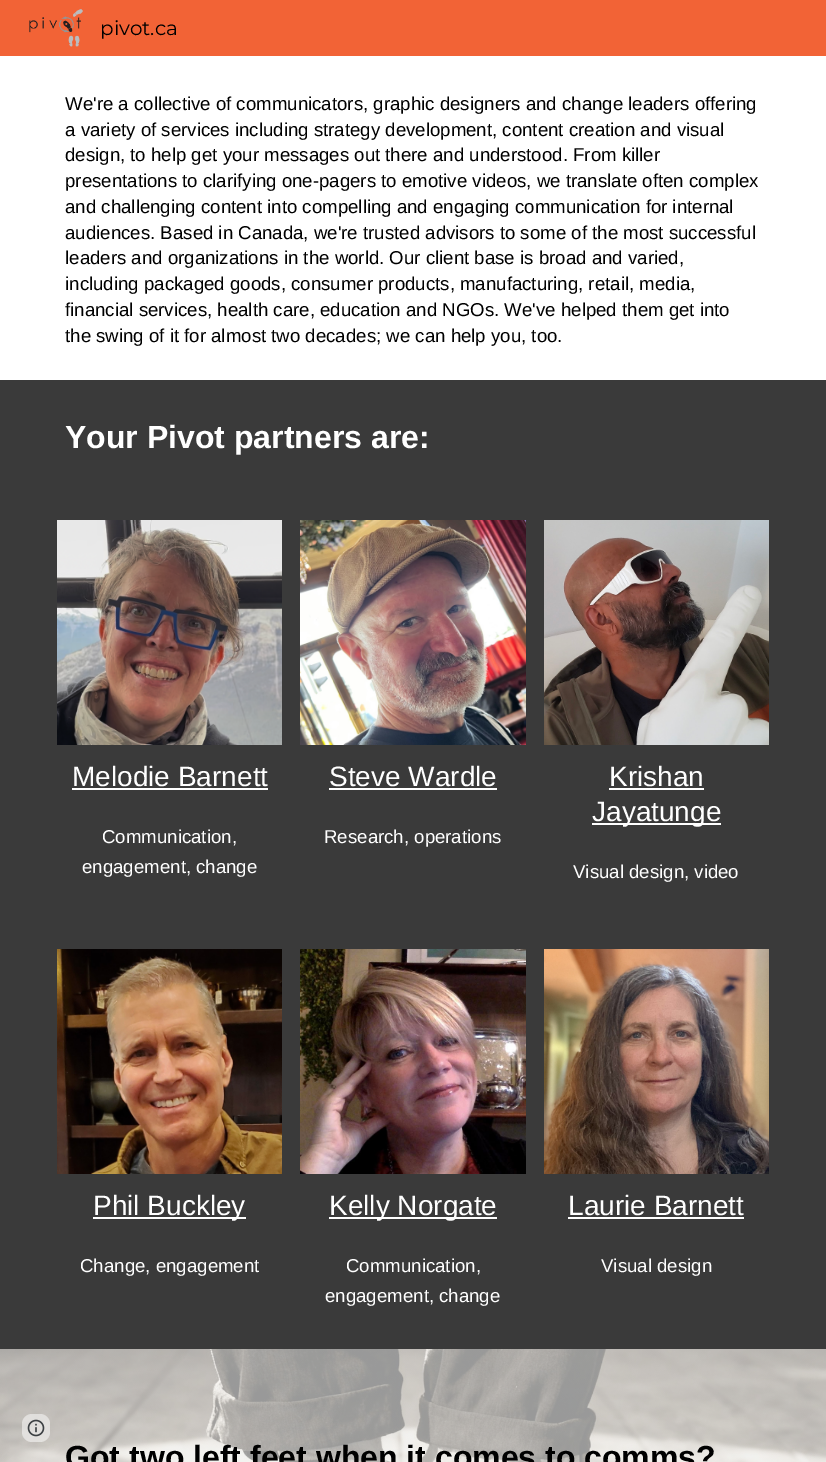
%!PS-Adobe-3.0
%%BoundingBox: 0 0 826 1462
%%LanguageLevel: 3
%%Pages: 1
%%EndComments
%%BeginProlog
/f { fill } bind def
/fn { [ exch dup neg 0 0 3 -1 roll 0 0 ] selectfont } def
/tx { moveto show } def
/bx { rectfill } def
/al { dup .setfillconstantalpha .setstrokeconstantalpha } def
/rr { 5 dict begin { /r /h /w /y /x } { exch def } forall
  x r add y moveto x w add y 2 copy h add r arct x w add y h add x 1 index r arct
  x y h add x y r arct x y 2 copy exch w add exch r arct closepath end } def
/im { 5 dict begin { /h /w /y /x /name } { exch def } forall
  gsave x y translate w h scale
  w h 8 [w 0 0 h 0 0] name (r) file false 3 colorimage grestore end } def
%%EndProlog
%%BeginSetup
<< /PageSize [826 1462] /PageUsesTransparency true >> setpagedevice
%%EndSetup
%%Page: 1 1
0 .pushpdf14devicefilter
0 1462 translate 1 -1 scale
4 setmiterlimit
1 setgray
0 0 826 1462 bx
0.949 0.388 0.212 setrgbcolor
0 0 826 56 bx
(image0.raw) 29 9 54 38 im
/Montserrat-Regular 20 fn
0 setgray
(pivot.ca) 100 35 tx
(image8.raw) 0 1349 826 113 im
0.5 al
1 setgray
22 1414 28 28 10 rr f
1 al
(image1.raw) 27 1419 18 18 im
/LiberationSans-Regular 18.65 fn
0 setgray
(We're a collective of communicators, graphic designers and change leaders offering) 65 110 tx
(a variety of services including strategy development, content creation and visual) 65 136 tx
(design, to help get your messages out there and understood. From killer) 65 161 tx
(presentations to clarifying one-pagers to emotive videos, we translate often complex) 65 187 tx
(and challenging content into compelling and engaging communication for internal) 65 213 tx
(audiences. Based in Canada, we're trusted advisors to some of the most successful) 65 239 tx
(leaders and organizations in the world. Our client base is broad and varied,) 65 264 tx
(including packaged goods, consumer products, manufacturing, retail, media,) 65 290 tx
(financial services, health care, education and NGOs. We've helped them get into) 65 316 tx
(the swing of it for almost two decades; we can help you, too.) 65 342 tx
0.227 setgray
0 380 826 969 bx
/LiberationSans-Bold 32 fn
1 setgray
(Your Pivot partners are:) 65 448 tx
(image2.raw) 57 520 225 225 im
/LiberationSans-Regular 28 fn
(Melodie Barnett) 72 786 tx
72 788 196 2 bx
/LiberationSans-Regular 18.65 fn
(Communication,) 102 843 tx
(engagement, change) 82 873 tx
(image3.raw) 300 520 226 225 im
/LiberationSans-Regular 28 fn
(Steve Wardle) 329 786 tx
329 788 168 2 bx
/LiberationSans-Regular 18.65 fn
(Research, operations) 324 843 tx
(image4.raw) 544 520 225 225 im
/LiberationSans-Regular 28 fn
(Krishan) 609 786 tx
609 788 95 2 bx
592 823 129 2 bx
(Jayatunge) 592 821 tx
/LiberationSans-Regular 18.65 fn
(Visual design, video) 573 878 tx
(image5.raw) 57 949 225 225 im
93 1217 153 2 bx
/LiberationSans-Regular 28 fn
(Phil Buckley) 93 1215 tx
/LiberationSans-Regular 18.65 fn
(Change, engagement) 80 1272 tx
(image6.raw) 300 949 226 225 im
329 1217 168 2 bx
/LiberationSans-Regular 28 fn
(Kelly Norgate) 329 1215 tx
/LiberationSans-Regular 18.65 fn
(Communication,) 346 1272 tx
(engagement, change) 325 1302 tx
(image7.raw) 544 949 225 225 im
/LiberationSans-Regular 28 fn
(Laurie Barnett) 568 1215 tx
568 1217 176 2 bx
/LiberationSans-Regular 18.65 fn
(Visual design) 601 1272 tx
/LiberationSans-Bold 32 fn
0 setgray
(Got two left feet when it comes to comms?) 65 1468 tx
.poppdf14devicefilter showpage
%%EOF
